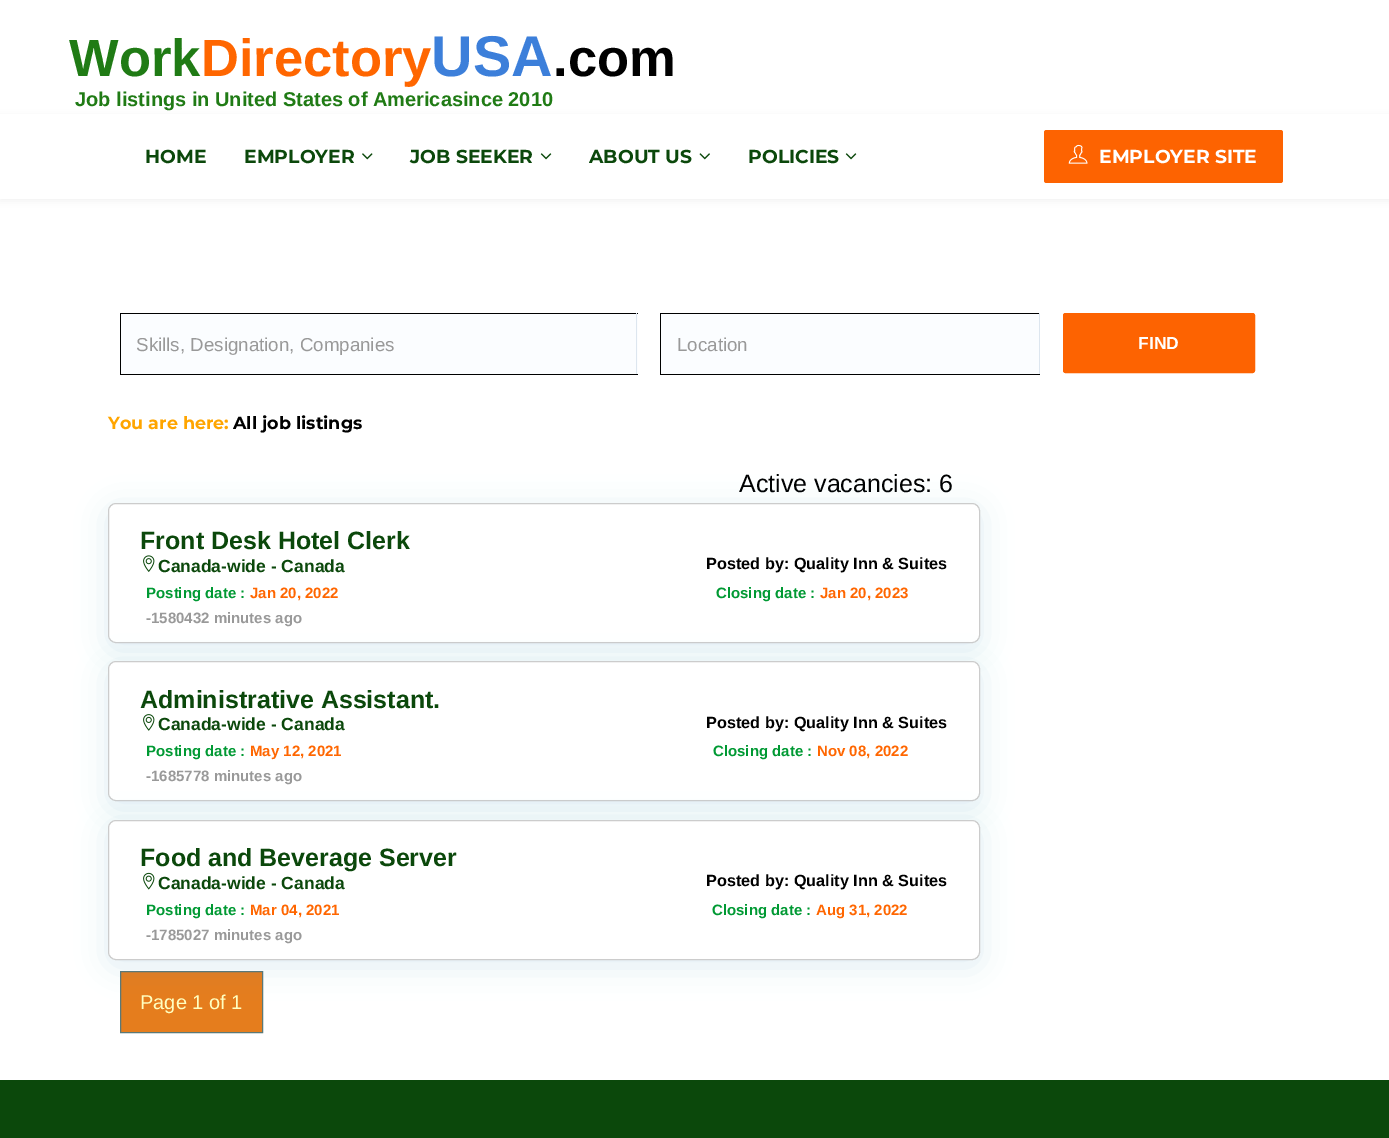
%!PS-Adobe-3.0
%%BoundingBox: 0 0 1389 1138
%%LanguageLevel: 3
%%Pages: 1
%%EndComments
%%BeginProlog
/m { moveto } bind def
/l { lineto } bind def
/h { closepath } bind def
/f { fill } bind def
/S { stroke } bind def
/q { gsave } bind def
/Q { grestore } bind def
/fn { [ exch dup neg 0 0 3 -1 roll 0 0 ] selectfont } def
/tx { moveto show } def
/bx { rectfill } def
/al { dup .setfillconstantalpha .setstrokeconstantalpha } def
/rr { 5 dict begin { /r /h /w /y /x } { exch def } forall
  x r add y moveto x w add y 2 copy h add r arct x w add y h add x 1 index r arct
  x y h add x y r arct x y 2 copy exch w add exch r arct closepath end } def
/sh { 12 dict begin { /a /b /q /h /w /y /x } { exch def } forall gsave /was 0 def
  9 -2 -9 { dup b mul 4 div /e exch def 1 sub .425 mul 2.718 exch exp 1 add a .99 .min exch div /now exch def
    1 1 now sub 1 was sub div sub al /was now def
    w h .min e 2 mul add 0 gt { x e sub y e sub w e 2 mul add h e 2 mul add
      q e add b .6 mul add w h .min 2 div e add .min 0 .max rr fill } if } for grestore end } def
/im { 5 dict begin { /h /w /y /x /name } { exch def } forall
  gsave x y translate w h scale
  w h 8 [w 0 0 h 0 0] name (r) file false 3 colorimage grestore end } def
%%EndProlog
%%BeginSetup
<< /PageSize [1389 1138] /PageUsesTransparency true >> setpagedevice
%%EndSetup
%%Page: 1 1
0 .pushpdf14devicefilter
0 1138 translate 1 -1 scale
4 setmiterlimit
1 setgray
0 0 1389 1138 bx
/LiberationSans-Bold 52.5 fn
0.125 0.482 0.082 setrgbcolor
(Work) 69 76 tx
1 0.4 0 setrgbcolor
(Directory) 201 76 tx
/LiberationSans-Bold 57.5 fn
0.235 0.498 0.855 setrgbcolor
(USA) 431 76 tx
/LiberationSans-Bold 52.5 fn
0 setgray
(.com) 553 76 tx
/LiberationSans-Bold 20 fn
0.125 0.482 0.082 setrgbcolor
(Job listings in United States of Americasince 2010) 75 106 tx
0 setgray
0 116 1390 85 0 4 0.05 sh
1 setgray
0 114 1389 85 bx
/Montserrat-Bold 18.75 fn
0.043 0.282 0.043 setrgbcolor
(HOME) 145 163 tx
(EMPLOYER) 244 163 tx
(image0.raw) 362 153 11 7 im
(JOB SEEKER) 410 163 tx
(image1.raw) 540 153 12 7 im
(ABOUT US) 589 163 tx
(image2.raw) 699 153 11 7 im
(POLICIES) 748 163 tx
(image1.raw) 845 153 12 7 im
0.992 0.388 0.004 setrgbcolor
1044 130 239 53 2.5 rr f
(image3.raw) 1068 144 20 20 im
1 setgray
(EMPLOYER SITE) 1099 163 tx
0.984 0.992 1 setrgbcolor
121 314 517 60 bx
0 setgray
120 313 518 1 bx
0.867 0.902 0.937 setrgbcolor
636 313 1 62 bx
0 setgray
120 374 518 1 bx
120 313 1 62 bx
/LiberationSans-Regular 18.75 fn
0.6 setgray
(Skills, Designation, Companies) 136 351 tx
0.984 0.992 1 setrgbcolor
661 314 378 60 bx
0 setgray
660 313 380 1 bx
0.867 0.902 0.937 setrgbcolor
1039 313 1 62 bx
0 setgray
660 374 380 1 bx
660 313 1 62 bx
0.6 setgray
(Location) 677 351 tx
0.992 0.388 0.004 setrgbcolor
1063.5 313.5 191 59 2 rr q f Q
S
/LiberationSans-Bold 17.5 fn
1 setgray
(FIND) 1138 349 tx
/Montserrat-Bold 17.5 fn
1 0.647 0 setrgbcolor
(You are here:) 108 429 tx
0 setgray
(All job listings) 233 429 tx
/LiberationSans-Regular 25 fn
(Active vacancies: 6) 739 492 tx
0.161 0.502 0.725 setrgbcolor
108 509 872 140 8 15.5 0.15 sh
1 setgray
108.5 503.5 871 139 7.5 rr q f Q
0.8 setgray
S
/LiberationSans-Bold 25 fn
0.043 0.282 0.043 setrgbcolor
(Front Desk Hotel Clerk) 140 549 tx
(image4.raw) 143 555 12 17 im
/LiberationSans-Bold 17.5 fn
(Canada-wide - Canada) 158 572 tx
/LiberationSans-Bold 16.25 fn
0 setgray
(Posted by: Quality Inn & Suites) 706 569 tx
/LiberationSans-Bold 15 fn
0 0.6 0.2 setrgbcolor
(Posting date :) 146 598 tx
1 0.4 0 setrgbcolor
(Jan 20, 2022) 250 598 tx
0 0.6 0.2 setrgbcolor
(Closing date :) 716 598 tx
1 0.4 0 setrgbcolor
(Jan 20, 2023) 820 598 tx
0.6 setgray
(-1580432 minutes ago) 146 623 tx
0.161 0.502 0.725 setrgbcolor
108 668 872 140 8 15.5 0.15 sh
1 setgray
108.5 661.5 871 139 7.5 rr q f Q
0.8 setgray
S
/LiberationSans-Bold 25 fn
0.043 0.282 0.043 setrgbcolor
(Administrative Assistant.) 140 708 tx
(image5.raw) 143 714 12 17 im
/LiberationSans-Bold 17.5 fn
(Canada-wide - Canada) 158 730 tx
/LiberationSans-Bold 16.25 fn
0 setgray
(Posted by: Quality Inn & Suites) 706 728 tx
/LiberationSans-Bold 15 fn
0 0.6 0.2 setrgbcolor
(Posting date :) 146 756 tx
1 0.4 0 setrgbcolor
(May 12, 2021) 250 756 tx
0 0.6 0.2 setrgbcolor
(Closing date :) 713 756 tx
1 0.4 0 setrgbcolor
(Nov 08, 2022) 817 756 tx
0.6 setgray
(-1685778 minutes ago) 146 781 tx
0.898 0.49 0.114 setrgbcolor
120.5 971.5 m 262.5 971.5 l 262.5 1032.5 l 120.5 1032.5 l h q f Q
0.357 0.471 0.463 setrgbcolor
S
0.161 0.502 0.725 setrgbcolor
108 826 872 140 8 15.5 0.15 sh
1 setgray
108.5 820.5 871 139 7.5 rr q f Q
0.8 setgray
S
/LiberationSans-Bold 25 fn
0.043 0.282 0.043 setrgbcolor
(Food and Beverage Server) 140 866 tx
(image6.raw) 143 872 12 18 im
/LiberationSans-Bold 17.5 fn
(Canada-wide - Canada) 158 889 tx
/LiberationSans-Bold 16.25 fn
0 setgray
(Posted by: Quality Inn & Suites) 706 886 tx
/LiberationSans-Bold 15 fn
0 0.6 0.2 setrgbcolor
(Posting date :) 146 915 tx
1 0.4 0 setrgbcolor
(Mar 04, 2021) 250 915 tx
0 0.6 0.2 setrgbcolor
(Closing date :) 712 915 tx
1 0.4 0 setrgbcolor
(Aug 31, 2022) 816 915 tx
0.6 setgray
(-1785027 minutes ago) 146 940 tx
/LiberationSans-Regular 20 fn
1 1 0.753 setrgbcolor
(Page 1 of 1) 140 1009 tx
0.043 0.282 0.043 setrgbcolor
0 1080 1389 58 bx
.poppdf14devicefilter showpage
%%EOF
